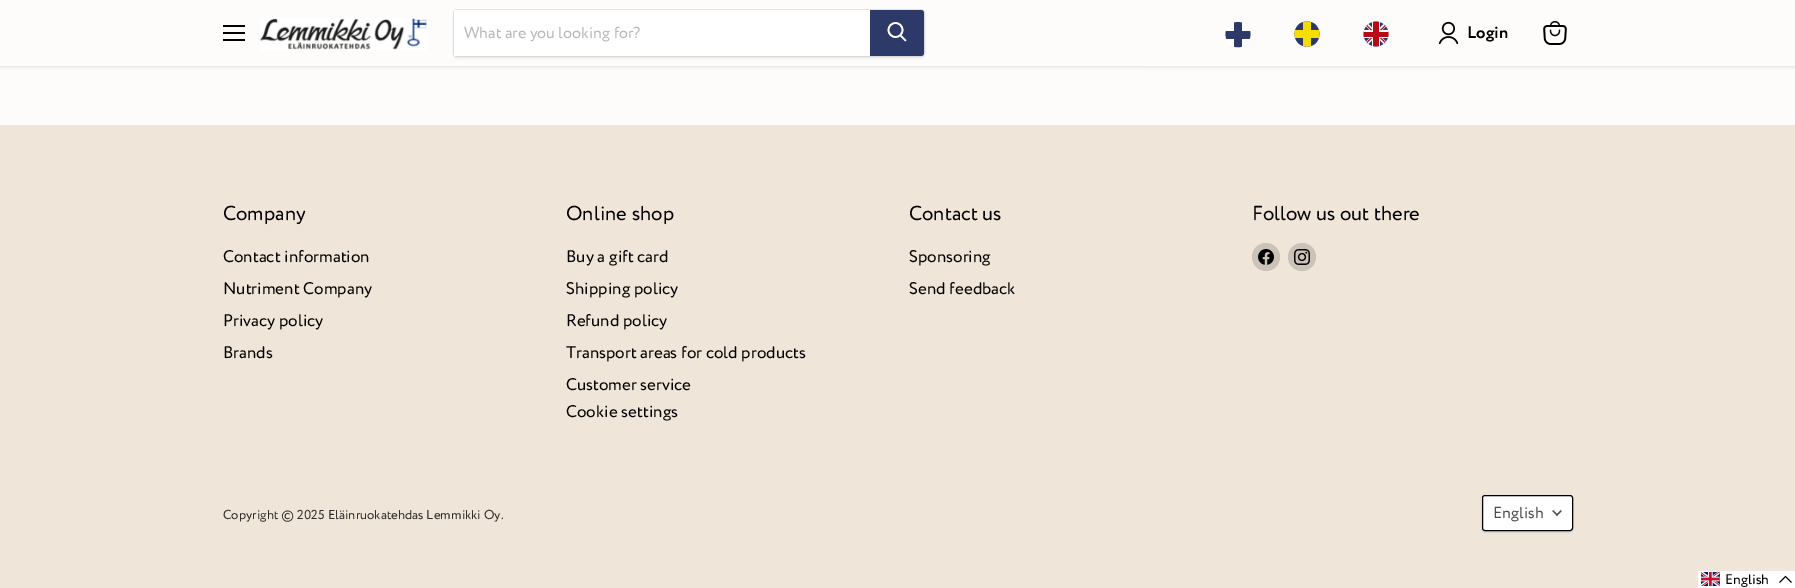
%!PS-Adobe-3.0
%%BoundingBox: 0 0 1795 588
%%LanguageLevel: 3
%%Pages: 1
%%EndComments
%%BeginProlog
/m { moveto } bind def
/l { lineto } bind def
/c { curveto } bind def
/h { closepath } bind def
/f { fill } bind def
/S { stroke } bind def
/q { gsave } bind def
/Q { grestore } bind def
/w { setlinewidth } bind def
/fn { [ exch dup neg 0 0 3 -1 roll 0 0 ] selectfont } def
/tx { moveto show } def
/bx { rectfill } def
/al { dup .setfillconstantalpha .setstrokeconstantalpha } def
/ci { newpath 0 360 arc closepath } def
/rr { 5 dict begin { /r /h /w /y /x } { exch def } forall
  x r add y moveto x w add y 2 copy h add r arct x w add y h add x 1 index r arct
  x y h add x y r arct x y 2 copy exch w add exch r arct closepath end } def
/sh { 12 dict begin { /a /b /q /h /w /y /x } { exch def } forall gsave /was 0 def
  9 -2 -9 { dup b mul 4 div /e exch def 1 sub .425 mul 2.718 exch exp 1 add a .99 .min exch div /now exch def
    1 1 now sub 1 was sub div sub al /was now def
    w h .min e 2 mul add 0 gt { x e sub y e sub w e 2 mul add h e 2 mul add
      q e add b .6 mul add w h .min 2 div e add .min 0 .max rr fill } if } for grestore end } def
/im { 5 dict begin { /h /w /y /x /name } { exch def } forall
  gsave x y translate w h scale
  w h 8 [w 0 0 h 0 0] name (r) file false 3 colorimage grestore end } def
%%EndProlog
%%BeginSetup
<< /PageSize [1795 588] /PageUsesTransparency true >> setpagedevice
%%EndSetup
%%Page: 1 1
0 .pushpdf14devicefilter
0 588 translate 1 -1 scale
4 setmiterlimit
0.992 0.988 0.984 setrgbcolor
0 0 1795 588 bx
0.498 0.494 0.494 setrgbcolor
0 1 1795 66 0 2 0.25 sh
0.992 0.988 0.984 setrgbcolor
0 0 1795 66 bx
0 setgray
223 25 22 2 bx
223 32 22 2 bx
223 39 22 2 bx
(image0.raw) 260 18 167 32 im
0.498 0.494 0.494 setrgbcolor
453 11 472 48 4 1.5 0.11 sh
0.2 al
453.5 9.5 471 47 3.5 rr S
1 al
1 setgray
454 10 416 46 bx
/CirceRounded-Regular 16 fn
0.722 setgray
(What are you looking for?) 464 38 tx
0.173 0.224 0.412 setrgbcolor
870 10 m 921 10 l 922.5 10 924 11.5 924 13 c 924 53 l 924 54.5 922.5 56 921 56 c 870 56 l h f
1 setgray
1.7 w
1 setlinecap
905.5 40.5 m 900.5 35.5 l S
0 setlinecap
895.5 30 7 ci S
1144 65 294 1 bx
1238 22 m 1221.5 22 1221.5 47 1238 47 c 1254.5 47 1254.5 22 1238 22 c h f
0.173 0.224 0.412 setrgbcolor
1238 22 m 1242 22.5 l 1242 46.5 l 1239.5 47.5 1236.5 47.5 1234 46.5 c 1234 22.5 l h f
1226.5 39 m 1225.5 36.5 1225 33.5 1226 31 c 1250 31 l 1251 33.5 1250.5 36.5 1249.5 39 c h f
1307 21.5 m 1290.5 21.5 1290.5 46.5 1307 46.5 c 1323.5 46.5 1323.5 21.5 1307 21.5 c h f
0.969 0.863 0 setrgbcolor
1307 21.5 m 1311 22 l 1311 46 l 1308.5 46.5 1305.5 46.5 1303 46 c 1303 22 l h f
1295 38 m 1294.5 35.5 1294.5 32.5 1295 30 c 1319 30 l 1319.5 32.5 1319.5 35.5 1319 38 c h f
(image1.raw) 1363 21 26 26 im
(image2.raw) 1438 21 20 24 im
/CirceRounded-Bold 16.9 fn
0 setgray
(Login) 1467 38 tx
(image3.raw) 1543 21 24 24 im
0.937 0.898 0.851 setrgbcolor
0 125 1795 463 bx
/CirceRounded-Regular 20.25 fn
0 setgray
(Company) 223 220 tx
/CirceRounded-Regular 16.9 fn
(Contact information) 223 262 tx
(Nutriment Company) 223 294 tx
(Privacy policy) 223 326 tx
(Brands) 223 358 tx
/CirceRounded-Regular 20.25 fn
(Online shop) 566 220 tx
/CirceRounded-Regular 16.9 fn
(Buy a gift card) 566 262 tx
(Shipping policy) 566 294 tx
(Refund policy) 566 326 tx
(Transport areas for cold products) 566 358 tx
(Customer service) 566 390 tx
(Cookie settings) 566 417 tx
/CirceRounded-Regular 20.25 fn
(Contact us) 909 220 tx
/CirceRounded-Regular 16.9 fn
(Sponsoring) 909 262 tx
(Send feedback) 909 294 tx
/CirceRounded-Regular 20.25 fn
(Follow us out there) 1252 220 tx
0.796 0.765 0.722 setrgbcolor
1266 257 14 ci f
(image4.raw) 1258 249 16 16 im
1302 257 14 ci f
(image5.raw) 1294 249 16 16 im
/CirceRounded-Regular 13 fn
0.188 0.18 0.169 setrgbcolor
(Copyright © 2025 Eläinruokatehdas Lemmikki Oy.) 223 519 tx
0 setgray
1482 496 91 36 3 1 0.15 sh
1 setgray
1482.5 495.5 90 35 2.5 rr q f Q
0 setgray
1 w
S
/CirceRounded-Regular 16 fn
0.302 setgray
(English) 1493 518 tx
(image6.raw) 1552 510 10 6 im
1 setgray
1698 571 97 17 bx
(image7.raw) 1701 572 19 14 im
/CirceRounded-Regular 14 fn
0 setgray
(English) 1725 584 tx
1791.5 582.5 m 1785.5 576.5 l 1779.5 582.5 l S
.poppdf14devicefilter showpage
%%EOF
